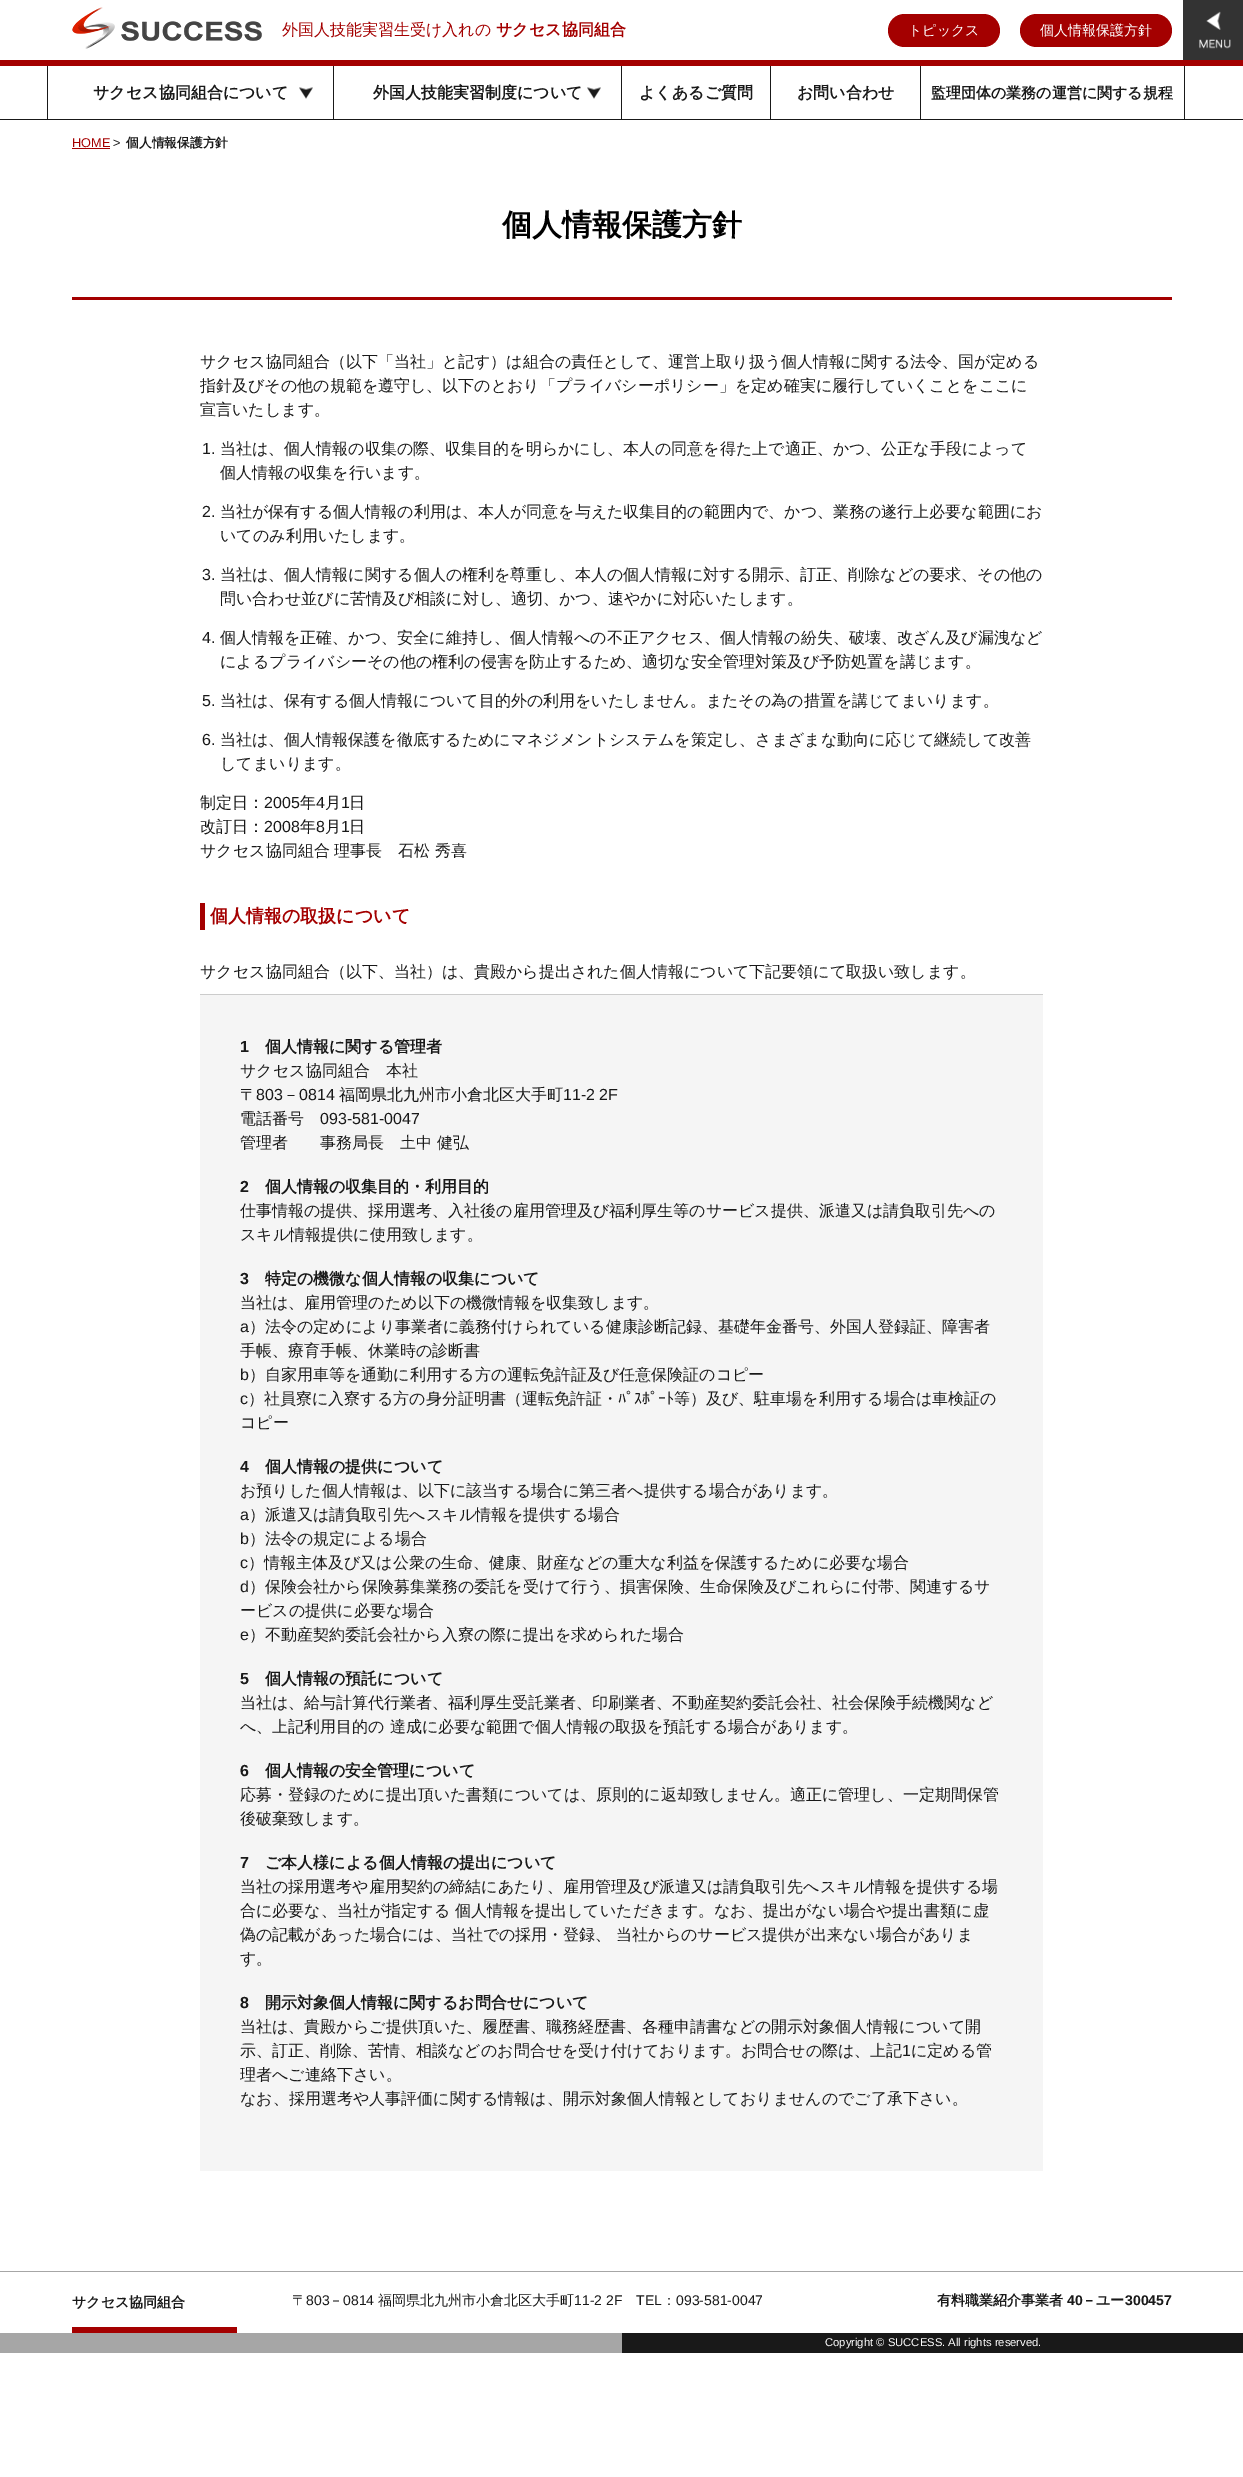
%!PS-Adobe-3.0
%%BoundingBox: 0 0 1243 2477
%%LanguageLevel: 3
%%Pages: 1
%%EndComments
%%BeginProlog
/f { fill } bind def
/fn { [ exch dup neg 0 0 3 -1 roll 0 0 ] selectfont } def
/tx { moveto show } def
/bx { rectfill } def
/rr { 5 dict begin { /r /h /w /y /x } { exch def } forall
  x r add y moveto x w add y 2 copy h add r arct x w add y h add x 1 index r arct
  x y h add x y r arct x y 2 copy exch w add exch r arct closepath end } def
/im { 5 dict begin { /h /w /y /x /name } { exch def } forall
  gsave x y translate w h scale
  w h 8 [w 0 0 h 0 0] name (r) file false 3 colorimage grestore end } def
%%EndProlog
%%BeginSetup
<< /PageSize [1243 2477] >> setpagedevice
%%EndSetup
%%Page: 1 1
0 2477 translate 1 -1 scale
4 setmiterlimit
1 setgray
0 0 1243 2477 bx
0.098 setgray
0 119 1243 1 bx
(image0.raw) 72 7 190 42 im
/WenQuanYiZenHei-Medium 16 fn
0.643 0 0 setrgbcolor
(外国人技能実習生受け入れの) 282 35 tx
/WenQuanYiZenHei-Bold 16 fn
(サクセス協同組合) 496 35 tx
888 14 112 33 16.5 rr f
/WenQuanYiZenHei-Medium 14 fn
1 setgray
(トピックス) 908 35 tx
0.643 0 0 setrgbcolor
1020 14 152 33 16.5 rr f
1 setgray
(個人情報保護方針) 1040 35 tx
(image1.raw) 1183 0 60 60 im
0.643 0 0 setrgbcolor
0 60 1243 6 bx
0.098 setgray
333 66 1 53 bx
47 66 1 53 bx
/WenQuanYiZenHei-Bold 16 fn
(サクセス協同組合について) 93 98 tx
(image2.raw) 299 87 14 12 im
621 66 1 53 bx
(外国人技能実習制度について) 373 98 tx
(image2.raw) 587 87 14 12 im
770 66 1 53 bx
(よくあるご質問) 639 98 tx
920 66 1 53 bx
(お問い合わせ) 797 98 tx
1184 66 1 53 bx
/WenQuanYiZenHei-Bold 15 fn
(監理団体の業務の運営に関する規程) 931 98 tx
/LiberationSans-Regular 12.75 fn
0.643 0 0 setrgbcolor
(HOME) 72 147 tx
72 148 38 1 bx
0.098 setgray
(>) 113 147 tx
/WenQuanYiZenHei-Bold 12.75 fn
(個人情報保護方針) 126 147 tx
0.643 0 0 setrgbcolor
72 297 1100 3 bx
/WenQuanYiZenHei-Bold 30 fn
0 setgray
(個人情報保護方針) 502 235 tx
/WenQuanYiZenHei-Medium 16 fn
0.098 setgray
(サクセス協同組合（以下「当社」と記す）は組合の責任として、運営上取り扱う個人情報に関する法令、国が定める) 200 367 tx
(指針及びその他の規範を遵守し、以下のとおり「プライバシーポリシー」を定め確実に履行していくことをここに) 200 391 tx
(宣言いたします。) 200 415 tx
/LiberationSans-Regular 16 fn
(1.) 202 454 tx
/WenQuanYiZenHei-Medium 16 fn
(当社は、個人情報の収集の際、収集目的を明らかにし、本人の同意を得た上で適正、かつ、公正な手段によって) 220 454 tx
(個人情報の収集を行います。) 220 478 tx
/LiberationSans-Regular 16 fn
(2.) 202 517 tx
/WenQuanYiZenHei-Medium 16 fn
(当社が保有する個人情報の利用は、本人が同意を与えた収集目的の範囲内で、かつ、業務の遂行上必要な範囲にお) 220 517 tx
(いてのみ利用いたします。) 220 541 tx
/LiberationSans-Regular 16 fn
(3.) 202 580 tx
/WenQuanYiZenHei-Medium 16 fn
(当社は、個人情報に関する個人の権利を尊重し、本人の個人情報に対する開示、訂正、削除などの要求、その他の) 220 580 tx
(問い合わせ並びに苦情及び相談に対し、適切、かつ、速やかに対応いたします。) 220 604 tx
/LiberationSans-Regular 16 fn
(4.) 202 643 tx
/WenQuanYiZenHei-Medium 16 fn
(個人情報を正確、かつ、安全に維持し、個人情報への不正アクセス、個人情報の紛失、破壊、改ざん及び漏洩など) 220 643 tx
(によるプライバシーその他の権利の侵害を防止するため、適切な安全管理対策及び予防処置を講じます。) 220 667 tx
/LiberationSans-Regular 16 fn
(5.) 202 706 tx
/WenQuanYiZenHei-Medium 16 fn
(当社は、保有する個人情報について目的外の利用をいたしません。またその為の措置を講じてまいります。) 220 706 tx
/LiberationSans-Regular 16 fn
(6.) 202 745 tx
/WenQuanYiZenHei-Medium 16 fn
(当社は、個人情報保護を徹底するためにマネジメントシステムを策定し、さまざまな動向に応じて継続して改善) 220 745 tx
(してまいります。) 220 769 tx
(制定日：) 200 808 tx
/LiberationSans-Regular 16 fn
(2005) 264 808 tx
/WenQuanYiZenHei-Medium 16 fn
(年) 300 808 tx
/LiberationSans-Regular 16 fn
(4) 316 808 tx
/WenQuanYiZenHei-Medium 16 fn
(月) 325 808 tx
/LiberationSans-Regular 16 fn
(1) 341 808 tx
/WenQuanYiZenHei-Medium 16 fn
(日) 349 808 tx
(改訂日：) 200 832 tx
/LiberationSans-Regular 16 fn
(2008) 264 832 tx
/WenQuanYiZenHei-Medium 16 fn
(年) 300 832 tx
/LiberationSans-Regular 16 fn
(8) 316 832 tx
/WenQuanYiZenHei-Medium 16 fn
(月) 325 832 tx
/LiberationSans-Regular 16 fn
(1) 341 832 tx
/WenQuanYiZenHei-Medium 16 fn
(日) 349 832 tx
(サクセス協同組合 理事長　石松 秀喜) 200 856 tx
0.643 0 0 setrgbcolor
200 903 5 27 bx
/WenQuanYiZenHei-Bold 18 fn
(個人情報の取扱について) 210 922 tx
/WenQuanYiZenHei-Medium 16 fn
0.098 setgray
(サクセス協同組合（以下、当社）は、貴殿から提出された個人情報について下記要領にて取扱い致します。) 200 977 tx
0.961 setgray
200 995 843 1176 bx
0.8 setgray
200 994 843 1 bx
/LiberationSans-Bold 16 fn
0.098 setgray
(1) 240 1052 tx
/WenQuanYiZenHei-Bold 16 fn
(個人情報に関する管理者) 265 1052 tx
/WenQuanYiZenHei-Medium 16 fn
(サクセス協同組合　本社) 240 1076 tx
(〒) 240 1100 tx
/LiberationSans-Regular 16 fn
(803) 256 1100 tx
/WenQuanYiZenHei-Medium 16 fn
(－) 283 1100 tx
/LiberationSans-Regular 16 fn
(0814) 299 1100 tx
/WenQuanYiZenHei-Medium 16 fn
(福岡県北九州市⼩倉北区⼤⼿町) 339 1100 tx
/LiberationSans-Regular 16 fn
(11-2 2F) 563 1100 tx
/WenQuanYiZenHei-Medium 16 fn
(電話番号) 240 1124 tx
/LiberationSans-Regular 16 fn
(093-581-0047) 320 1124 tx
/WenQuanYiZenHei-Medium 16 fn
(管理者　　事務局長　土中 健弘) 240 1148 tx
/LiberationSans-Bold 16 fn
(2) 240 1192 tx
/WenQuanYiZenHei-Bold 16 fn
(個人情報の収集目的・利用目的) 265 1192 tx
/WenQuanYiZenHei-Medium 16 fn
(仕事情報の提供、採用選考、入社後の雇用管理及び福利厚生等のサービス提供、派遣又は請負取引先への) 240 1216 tx
(スキル情報提供に使用致します。) 240 1240 tx
/LiberationSans-Bold 16 fn
(3) 240 1284 tx
/WenQuanYiZenHei-Bold 16 fn
(特定の機微な個人情報の収集について) 265 1284 tx
/WenQuanYiZenHei-Medium 16 fn
(当社は、雇用管理のため以下の機微情報を収集致します。) 240 1308 tx
/LiberationSans-Regular 16 fn
(a) 240 1332 tx
/WenQuanYiZenHei-Medium 16 fn
(）法令の定めにより事業者に義務付けられている健康診断記録、基礎年金番号、外国人登録証、障害者) 249 1332 tx
(手帳、療育手帳、休業時の診断書) 240 1356 tx
/LiberationSans-Regular 16 fn
(b) 240 1380 tx
/WenQuanYiZenHei-Medium 16 fn
(）自家用車等を通勤に利用する方の運転免許証及び任意保険証のコピー) 249 1380 tx
/LiberationSans-Regular 16 fn
(c) 240 1404 tx
/WenQuanYiZenHei-Medium 16 fn
(）社員寮に入寮する方の身分証明書（運転免許証・) 248 1404 tx
/IPAPGothic-Regular 16 fn
(ﾊﾟｽﾎﾟｰﾄ) 618 1404 tx
/WenQuanYiZenHei-Medium 16 fn
(等）及び、駐車場を利用する場合は車検証の) 674 1404 tx
(コピー) 240 1428 tx
/LiberationSans-Bold 16 fn
(4) 240 1472 tx
/WenQuanYiZenHei-Bold 16 fn
(個人情報の提供について) 265 1472 tx
/WenQuanYiZenHei-Medium 16 fn
(お預りした個人情報は、以下に該当する場合に第三者へ提供する場合があります。) 240 1496 tx
/LiberationSans-Regular 16 fn
(a) 240 1520 tx
/WenQuanYiZenHei-Medium 16 fn
(）派遣又は請負取引先へスキル情報を提供する場合) 249 1520 tx
/LiberationSans-Regular 16 fn
(b) 240 1544 tx
/WenQuanYiZenHei-Medium 16 fn
(）法令の規定による場合) 249 1544 tx
/LiberationSans-Regular 16 fn
(c) 240 1568 tx
/WenQuanYiZenHei-Medium 16 fn
(）情報主体及び又は公衆の生命、健康、財産などの重大な利益を保護するために必要な場合) 248 1568 tx
/LiberationSans-Regular 16 fn
(d) 240 1592 tx
/WenQuanYiZenHei-Medium 16 fn
(）保険会社から保険募集業務の委託を受けて行う、損害保険、生命保険及びこれらに付帯、関連するサ) 249 1592 tx
(ービスの提供に必要な場合) 240 1616 tx
/LiberationSans-Regular 16 fn
(e) 240 1640 tx
/WenQuanYiZenHei-Medium 16 fn
(）不動産契約委託会社から入寮の際に提出を求められた場合) 249 1640 tx
/LiberationSans-Bold 16 fn
(5) 240 1684 tx
/WenQuanYiZenHei-Bold 16 fn
(個人情報の預託について) 265 1684 tx
/WenQuanYiZenHei-Medium 16 fn
(当社は、給与計算代行業者、福利厚生受託業者、印刷業者、不動産契約委託会社、社会保険手続機関など) 240 1708 tx
(へ、上記利用目的の 達成に必要な範囲で個人情報の取扱を預託する場合があります。) 240 1732 tx
/LiberationSans-Bold 16 fn
(6) 240 1776 tx
/WenQuanYiZenHei-Bold 16 fn
(個人情報の安全管理について) 265 1776 tx
/WenQuanYiZenHei-Medium 16 fn
(応募・登録のために提出頂いた書類については、原則的に返却致しません。適正に管理し、一定期間保管) 240 1800 tx
(後破棄致します。) 240 1824 tx
/LiberationSans-Bold 16 fn
(7) 240 1868 tx
/WenQuanYiZenHei-Bold 16 fn
(ご本人様による個人情報の提出について) 265 1868 tx
/WenQuanYiZenHei-Medium 16 fn
(当社の採用選考や雇用契約の締結にあたり、雇用管理及び派遣又は請負取引先へスキル情報を提供する場) 240 1892 tx
(合に必要な、当社が指定する 個人情報を提出していただきます。なお、提出がない場合や提出書類に虚) 240 1916 tx
(偽の記載があった場合には、当社での採用・登録、 当社からのサービス提供が出来ない場合がありま) 240 1940 tx
(す。) 240 1964 tx
/LiberationSans-Bold 16 fn
(8) 240 2008 tx
/WenQuanYiZenHei-Bold 16 fn
(開示対象個人情報に関するお問合せについて) 265 2008 tx
/WenQuanYiZenHei-Medium 16 fn
(当社は、貴殿からご提供頂いた、履歴書、職務経歴書、各種申請書などの開示対象個人情報について開) 240 2032 tx
(示、訂正、削除、苦情、相談などのお問合せを受け付けております。お問合せの際は、上記) 240 2056 tx
/LiberationSans-Regular 16 fn
(1) 902 2056 tx
/WenQuanYiZenHei-Medium 16 fn
(に定める管) 911 2056 tx
(理者へご連絡下さい。) 240 2080 tx
(なお、採用選考や人事評価に関する情報は、開示対象個人情報としておりませんのでご了承下さい。) 240 2104 tx
0.651 setgray
0 2271 1243 1 bx
0.643 0 0 setrgbcolor
72 2327 165 6 bx
/WenQuanYiZenHei-Bold 14 fn
0.098 setgray
(サクセス協同組合) 72 2307 tx
/WenQuanYiZenHei-Medium 14 fn
(〒) 292 2305 tx
/LiberationSans-Regular 14 fn
(803) 306 2305 tx
/WenQuanYiZenHei-Medium 14 fn
(－) 329 2305 tx
/LiberationSans-Regular 14 fn
(0814) 343 2305 tx
/WenQuanYiZenHei-Medium 14 fn
(福岡県北九州市⼩倉北区⼤⼿町) 378 2305 tx
/LiberationSans-Regular 14 fn
(11-2 2F) 574 2305 tx
(TEL) 636 2305 tx
/WenQuanYiZenHei-Medium 14 fn
(：) 662 2305 tx
/LiberationSans-Regular 14 fn
(093-581-0047) 676 2305 tx
/WenQuanYiZenHei-Bold 14 fn
(有料職業紹介事業者) 937 2305 tx
/LiberationSans-Bold 14 fn
(40) 1067 2305 tx
/WenQuanYiZenHei-Bold 14 fn
(－ユー) 1082 2305 tx
/LiberationSans-Bold 14 fn
(300457) 1125 2305 tx
0.651 setgray
0 2333 622 20 bx
0.098 setgray
622 2333 621 20 bx
/LiberationSans-Regular 11.25 fn
1 setgray
(Copyright © SUCCESS. All rights reserved.) 825 2346 tx
showpage
%%EOF
